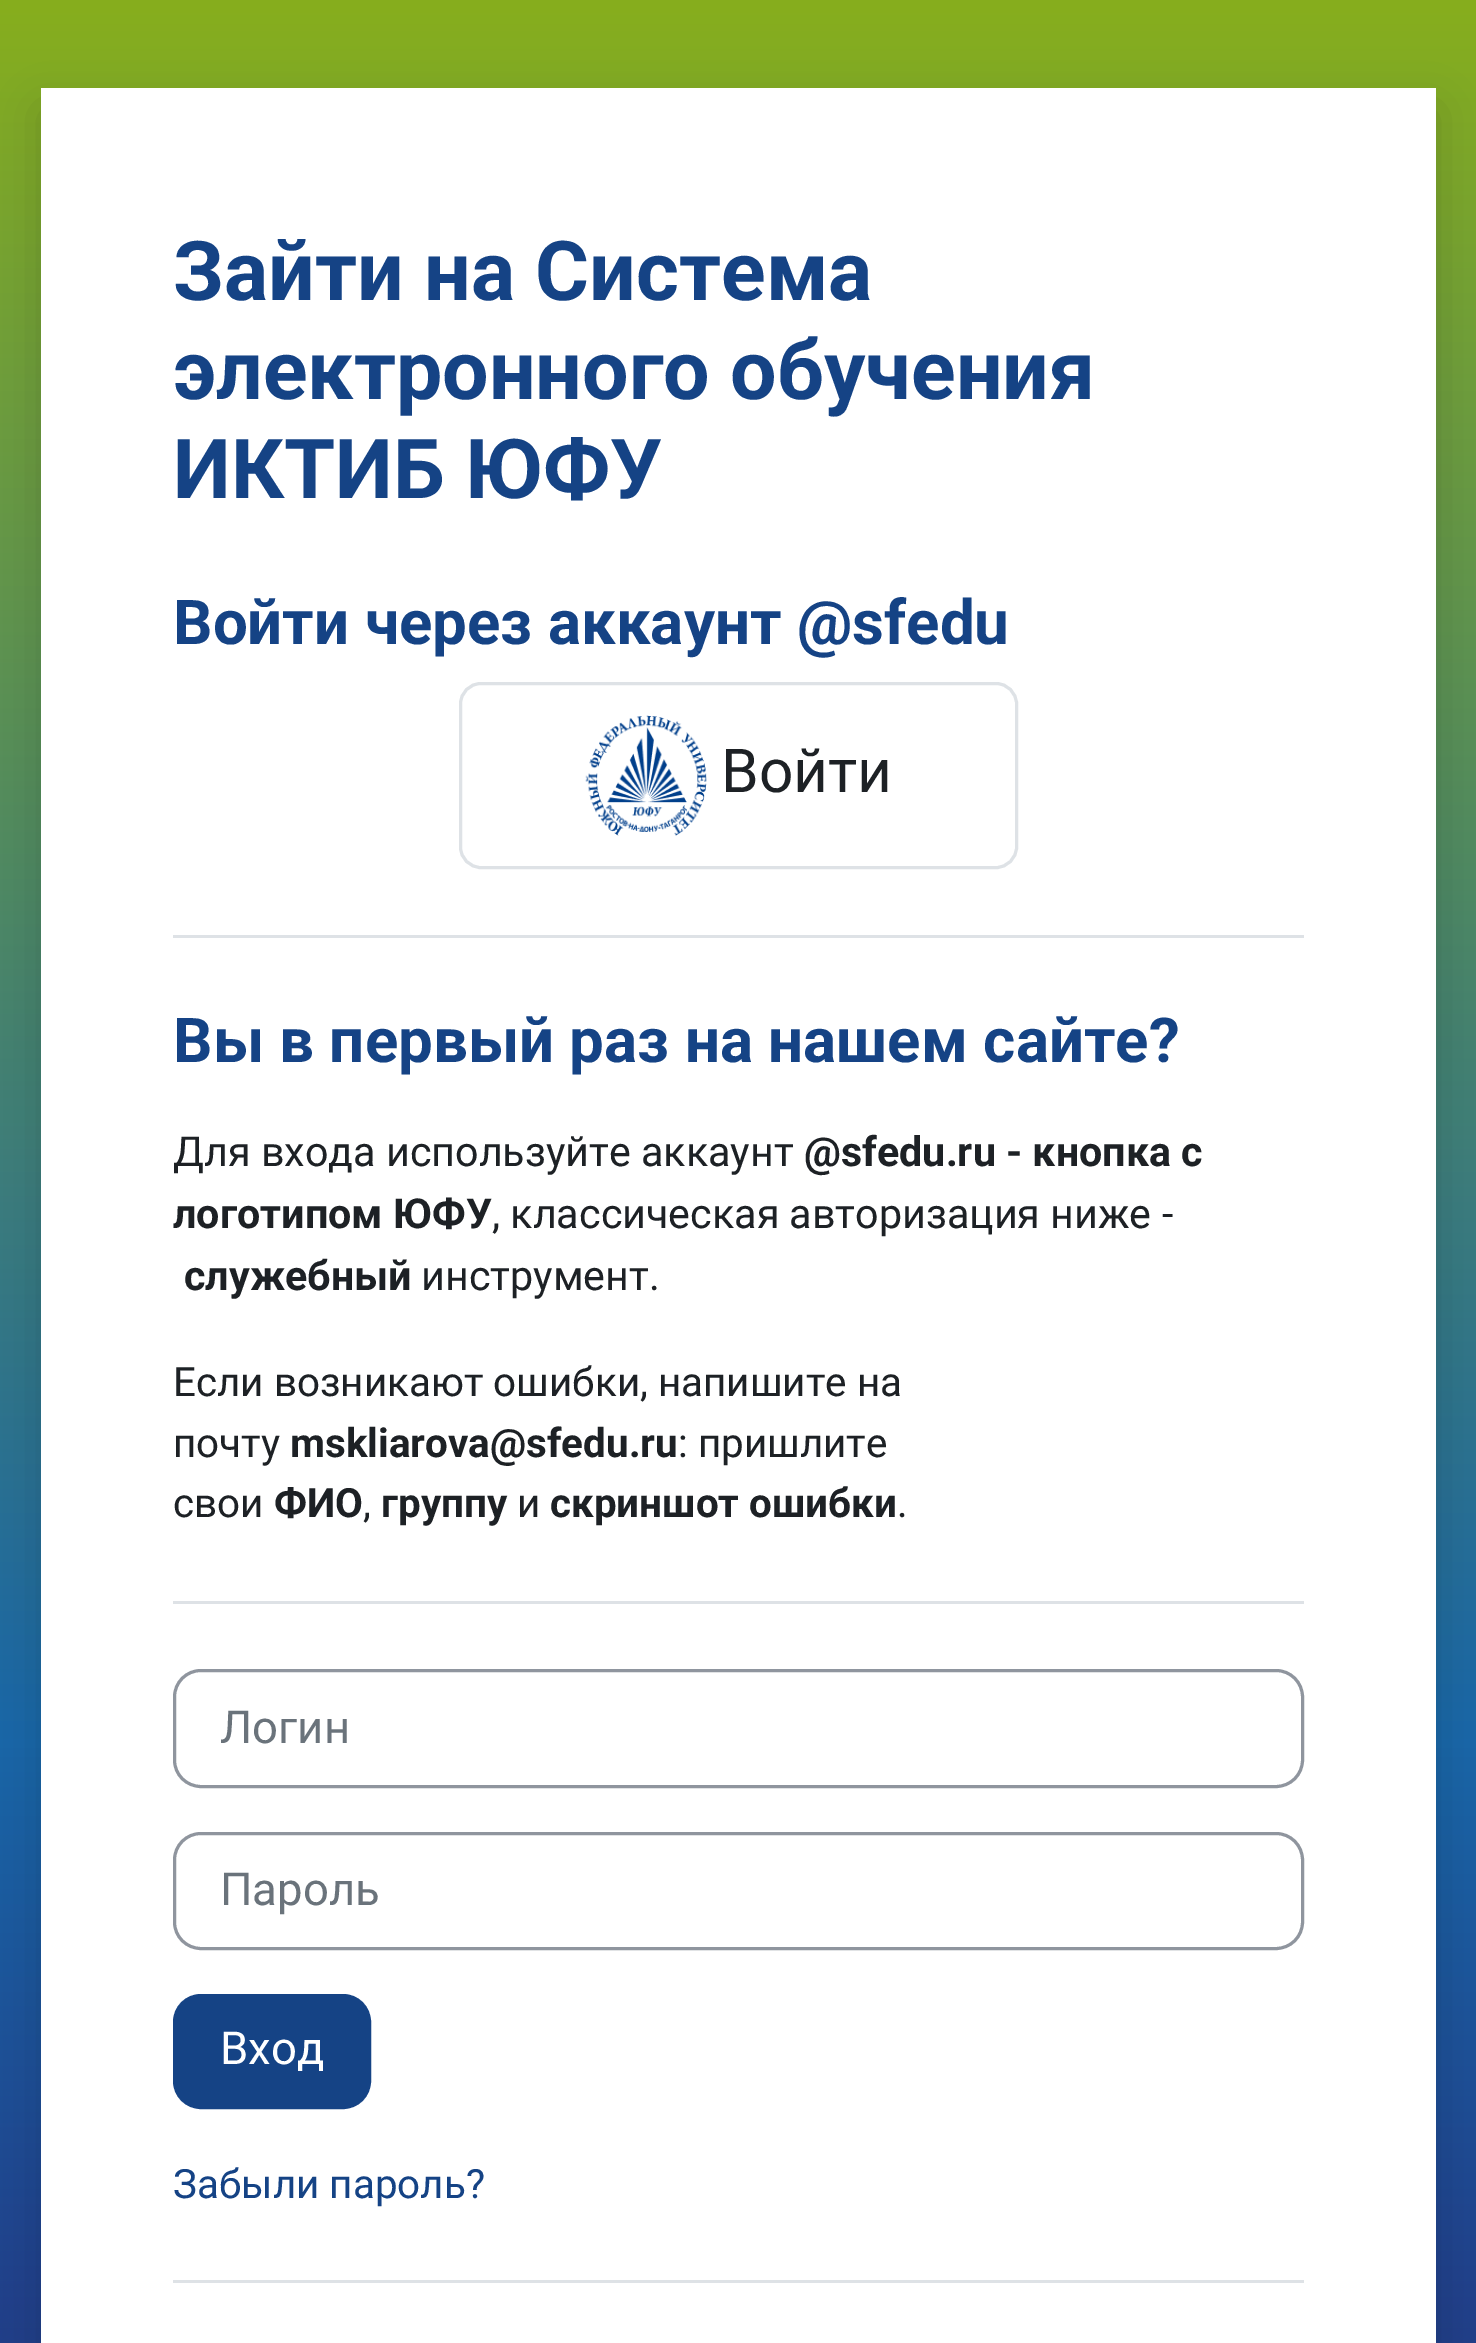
%!PS-Adobe-3.0
%%BoundingBox: 0 0 1476 2343
%%LanguageLevel: 3
%%Pages: 1
%%EndComments
%%BeginProlog
/m { moveto } bind def
/l { lineto } bind def
/h { closepath } bind def
/f { fill } bind def
/S { stroke } bind def
/q { gsave } bind def
/Q { grestore } bind def
/w { setlinewidth } bind def
/fn { [ exch dup neg 0 0 3 -1 roll 0 0 ] selectfont } def
/tx { moveto show } def
/bx { rectfill } def
/al { dup .setfillconstantalpha .setstrokeconstantalpha } def
/rr { 5 dict begin { /r /h /w /y /x } { exch def } forall
  x r add y moveto x w add y 2 copy h add r arct x w add y h add x 1 index r arct
  x y h add x y r arct x y 2 copy exch w add exch r arct closepath end } def
/sh { 12 dict begin { /a /b /q /h /w /y /x } { exch def } forall gsave /was 0 def
  9 -2 -9 { dup b mul 4 div /e exch def 1 sub .425 mul 2.718 exch exp 1 add a .99 .min exch div /now exch def
    1 1 now sub 1 was sub div sub al /was now def
    w h .min e 2 mul add 0 gt { x e sub y e sub w e 2 mul add h e 2 mul add
      q e add b .6 mul add w h .min 2 div e add .min 0 .max rr fill } if } for grestore end } def
/im { 5 dict begin { /h /w /y /x /name } { exch def } forall
  gsave x y translate w h scale
  w h 8 [w 0 0 h 0 0] name (r) file false 3 colorimage grestore end } def
%%EndProlog
%%BeginSetup
<< /PageSize [1476 2343] /PageUsesTransparency true >> setpagedevice
%%EndSetup
%%Page: 1 1
0 .pushpdf14devicefilter
0 2343 translate 1 -1 scale
4 setmiterlimit
1 setgray
0 0 1476 2343 bx
q 0 0 m 1476 0 l 1476 2343 l 0 2343 l h clip newpath
<< /ShadingType 2 /ColorSpace /DeviceRGB /Coords [738 0 738 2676] /Extend [true true] /Function << /FunctionType 3 /Domain [0 1] /Functions [<< /FunctionType 2 /Domain [0 1] /C0 [0.529 0.682 0.114] /C1 [0.098 0.4 0.659] /N 1 >> << /FunctionType 2 /Domain [0 1] /C0 [0.098 0.4 0.659] /C1 [0.149 0.157 0.471] /N 1 >>] /Bounds [0.65] /Encode [0 1 0 1] >> >> shfill Q
0 setgray
41 110 1395 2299 0 22 0.15 sh
1 setgray
41 88 1395 2255 bx
/Roboto-Bold 82.5 fn
0.082 0.263 0.522 setrgbcolor
(Зайти на Система) 173 300 tx
(электронного обучения) 173 399 tx
(ИКТИБ ЮФУ) 173 498 tx
/Roboto-Bold 61.9 fn
(Войти через аккаунт @sfedu) 173 644 tx
0.871 0.886 0.902 setrgbcolor
3 w
460.5 683.5 556 184 20.5 rr S
(image0.raw) 585 715 122 121 im
/Roboto-Regular 60.5 fn
0.114 0.129 0.145 setrgbcolor
(Войти) 721 792 tx
0.871 0.886 0.902 setrgbcolor
173 935 1131 3 bx
/Roboto-Bold 61.9 fn
0.082 0.263 0.522 setrgbcolor
(Вы в первый раз на нашем сайте?) 173 1062 tx
/Roboto-Regular 41.25 fn
0.114 0.129 0.145 setrgbcolor
(Для входа используйте аккаунт) 173 1166 tx
/Roboto-Bold 41.25 fn
(@sfedu.ru - кнопка с) 804 1166 tx
(логотипом ЮФУ) 173 1228 tx
/Roboto-Regular 41.25 fn
(, классическая авторизация ниже -) 492 1228 tx
/Roboto-Bold 41.25 fn
(служебный) 184 1290 tx
/Roboto-Regular 41.25 fn
(инструмент.) 421 1290 tx
/Roboto-Regular 40.4 fn
(Если возникают ошибки, напишите на) 173 1396 tx
(почту) 173 1457 tx
/Roboto-Bold 40.4 fn
(mskliarova@sfedu.ru) 290 1457 tx
/Roboto-Regular 40.4 fn
(: пришлите) 678 1457 tx
(свои) 173 1517 tx
/Roboto-Bold 40.4 fn
(ФИО) 274 1517 tx
/Roboto-Regular 40.4 fn
(,) 363 1517 tx
/Roboto-Bold 40.4 fn
(группу) 381 1517 tx
/Roboto-Regular 40.4 fn
(и) 517 1517 tx
/Roboto-Bold 40.4 fn
(скриншот ошибки) 550 1517 tx
/Roboto-Regular 40.4 fn
(.) 897 1517 tx
0.871 0.886 0.902 setrgbcolor
173 1601 1131 3 bx
0.561 0.584 0.62 setrgbcolor
174.5 1670.5 1128 116 26.5 rr S
/Roboto-Regular 45.5 fn
0.416 0.451 0.482 setrgbcolor
(Логин) 220 1743 tx
0.561 0.584 0.62 setrgbcolor
174.5 1833.5 1128 115 26.5 rr S
0.416 0.451 0.482 setrgbcolor
(Пароль) 220 1905 tx
0.082 0.263 0.522 setrgbcolor
174.5 1995.5 195 112 26.5 rr q f Q
S
1 setgray
(Вход) 220 2064 tx
/Roboto-Regular 40.4 fn
0.082 0.263 0.522 setrgbcolor
(Забыли пароль?) 173 2198 tx
0.871 0.886 0.902 setrgbcolor
173 2280 1131 3 bx
.poppdf14devicefilter showpage
%%EOF
